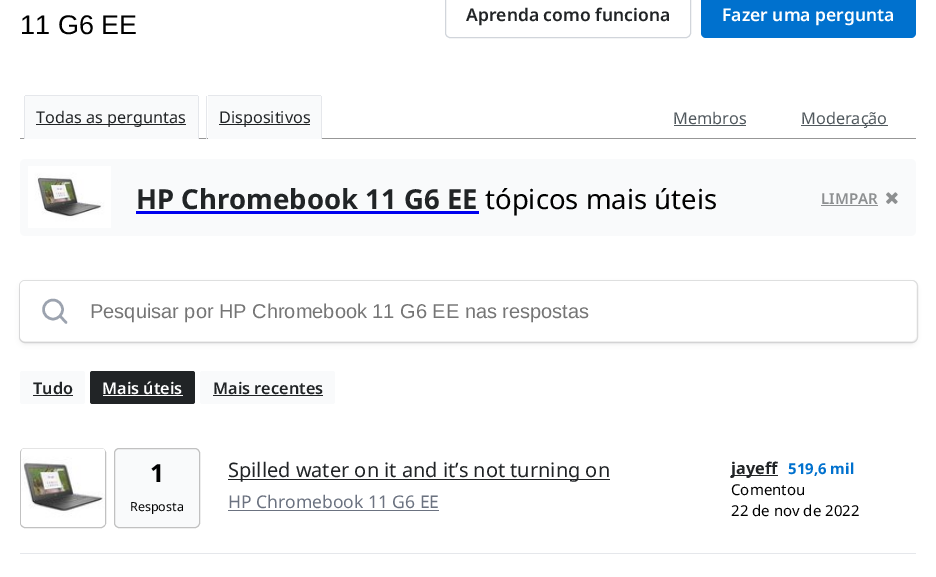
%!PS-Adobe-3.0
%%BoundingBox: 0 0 936 577
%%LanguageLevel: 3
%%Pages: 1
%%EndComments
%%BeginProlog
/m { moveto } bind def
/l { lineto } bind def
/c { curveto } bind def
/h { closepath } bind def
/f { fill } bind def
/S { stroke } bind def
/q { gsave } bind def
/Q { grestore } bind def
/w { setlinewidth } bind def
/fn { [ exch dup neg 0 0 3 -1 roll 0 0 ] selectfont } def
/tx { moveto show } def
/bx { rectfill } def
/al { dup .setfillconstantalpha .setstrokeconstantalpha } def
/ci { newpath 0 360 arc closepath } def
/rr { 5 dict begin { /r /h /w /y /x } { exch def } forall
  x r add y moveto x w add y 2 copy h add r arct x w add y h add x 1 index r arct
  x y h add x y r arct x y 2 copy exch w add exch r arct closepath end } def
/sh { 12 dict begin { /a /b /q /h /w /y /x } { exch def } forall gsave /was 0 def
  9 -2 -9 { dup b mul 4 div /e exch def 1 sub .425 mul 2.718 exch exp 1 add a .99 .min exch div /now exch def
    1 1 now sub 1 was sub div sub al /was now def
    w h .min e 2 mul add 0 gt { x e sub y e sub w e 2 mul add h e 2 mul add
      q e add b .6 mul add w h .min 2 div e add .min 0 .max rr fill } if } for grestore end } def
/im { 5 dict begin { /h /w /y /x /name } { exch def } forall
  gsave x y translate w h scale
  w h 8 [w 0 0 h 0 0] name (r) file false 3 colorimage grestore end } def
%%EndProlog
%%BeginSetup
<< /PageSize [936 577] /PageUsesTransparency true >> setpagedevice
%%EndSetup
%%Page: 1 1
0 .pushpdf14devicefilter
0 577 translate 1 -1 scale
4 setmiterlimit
1 setgray
0 0 936 577 bx
/LiberationSans-Regular 27 fn
0 setgray
(11 G6 EE) 20 34 tx
0.82 0.835 0.859 setrgbcolor
445.5 -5.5 245 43 4.5 rr S
/NotoSans-SemiBold 17.5 fn
0.129 0.141 0.149 setrgbcolor
(Aprenda como funciona) 466 21 tx
0 0.443 0.808 setrgbcolor
701 -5 215 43 5 rr f
1 setgray
(Fazer uma pergunta) 722 21 tx
0.592 setgray
20 138 896 1 bx
0.976 0.98 0.984 setrgbcolor
26 96 m 197 96 l 197.5 96 198 96.5 198 97 c 198 139 l 25 139 l 25 97 l 25 96.5 25.5 96 26 96 c h f
0.898 0.906 0.922 setrgbcolor
25 95 173 1 bx
198 96 1 43 bx
24 96 1 43 bx
0.129 0.141 0.149 setrgbcolor
36 124 150 1 bx
/NotoSans-Regular 16.25 fn
(Todas as perguntas) 36 123 tx
0.976 0.98 0.984 setrgbcolor
209 96 m 320 96 l 320.5 96 321 96.5 321 97 c 321 139 l 208 139 l 208 97 l 208 96.5 208.5 96 209 96 c h f
0.898 0.906 0.922 setrgbcolor
208 95 113 1 bx
321 96 1 43 bx
206 96 1 43 bx
0.129 0.141 0.149 setrgbcolor
219 124 91 1 bx
(Dispositivos) 219 123 tx
0.314 0.345 0.365 setrgbcolor
(Membros) 673 124 tx
674 125 72 1 bx
801 125 87 1 bx
(Moderação) 801 124 tx
0.976 0.98 0.984 setrgbcolor
20 159 896 77 5 rr f
(image0.raw) 28 166 83 62 im
/NotoSans-Bold 27.5 fn
0.129 0.141 0.149 setrgbcolor
(HP Chromebook 11 G6 EE) 136 209 tx
0 0 0.933 setrgbcolor
136 211 343 3 bx
/NotoSans-Regular 27.5 fn
0 setgray
(tópicos mais úteis) 485 209 tx
/NotoSans-SemiBold 15 fn
0.553 0.561 0.569 setrgbcolor
(LIMPAR) 821 204 tx
821 205 57 1 bx
(image1.raw) 886 192 12 12 im
0 0.012 0.024 setrgbcolor
20 284 896 60 5 2.5 0.07 sh
0.12 al
19.5 280.5 898 62 5.5 rr S
1 al
1 setgray
20 281 896 60 5 rr f
0.612 0.639 0.686 setrgbcolor
2.5 w
53 309.5 9.5 ci S
1 setlinecap
1 setlinejoin
66 322.5 m 60 316 l S
/LiberationSans-Regular 20 fn
0.459 setgray
(Pesquisar por HP Chromebook 11 G6 EE nas respostas) 90 318 tx
0.976 0.98 0.984 setrgbcolor
20 371 65 33 2.5 rr f
/NotoSans-SemiBold 16.25 fn
0.129 0.141 0.149 setrgbcolor
(Tudo) 33 394 tx
33 395 40 1 bx
90 371 105 33 2.5 rr f
1 setgray
(Mais úteis) 102 394 tx
103 395 80 1 bx
0.976 0.98 0.984 setrgbcolor
200 371 135 33 2.5 rr f
0.129 0.141 0.149 setrgbcolor
(Mais recentes) 213 394 tx
213 395 110 1 bx
0.898 0.906 0.922 setrgbcolor
20 553 896 1 bx
0.757 setgray
1 w
0 setlinecap
0 setlinejoin
20.5 448.5 85 79 4.5 rr S
(image2.raw) 21 448 84 77 im
0.976 0.98 0.984 setrgbcolor
114.5 448.5 85 79 4.5 rr q f Q
0.757 setgray
S
/NotoSans-Bold 25 fn
0 setgray
(1) 150 482 tx
/NotoSans-Regular 12.5 fn
(Resposta) 130 511 tx
0.129 0.141 0.149 setrgbcolor
228 479 382 1 bx
/NotoSans-Regular 20 fn
(Spilled water on it and it’s not turning on) 228 477 tx
/NotoSans-Regular 17.5 fn
0.42 0.447 0.502 setrgbcolor
(HP Chromebook 11 G6 EE) 228 508 tx
228 510 211 1 bx
0.129 0.141 0.149 setrgbcolor
731 475 47 1 bx
/NotoSans-Bold 16.25 fn
(jayeff) 731 474 tx
/NotoSans-Bold 15 fn
0 0.443 0.808 setrgbcolor
(519,6 mil) 788 474 tx
/NotoSans-Regular 15 fn
0 setgray
(Comentou) 731 495 tx
(22 de nov de 2022) 731 516 tx
.poppdf14devicefilter showpage
%%EOF
